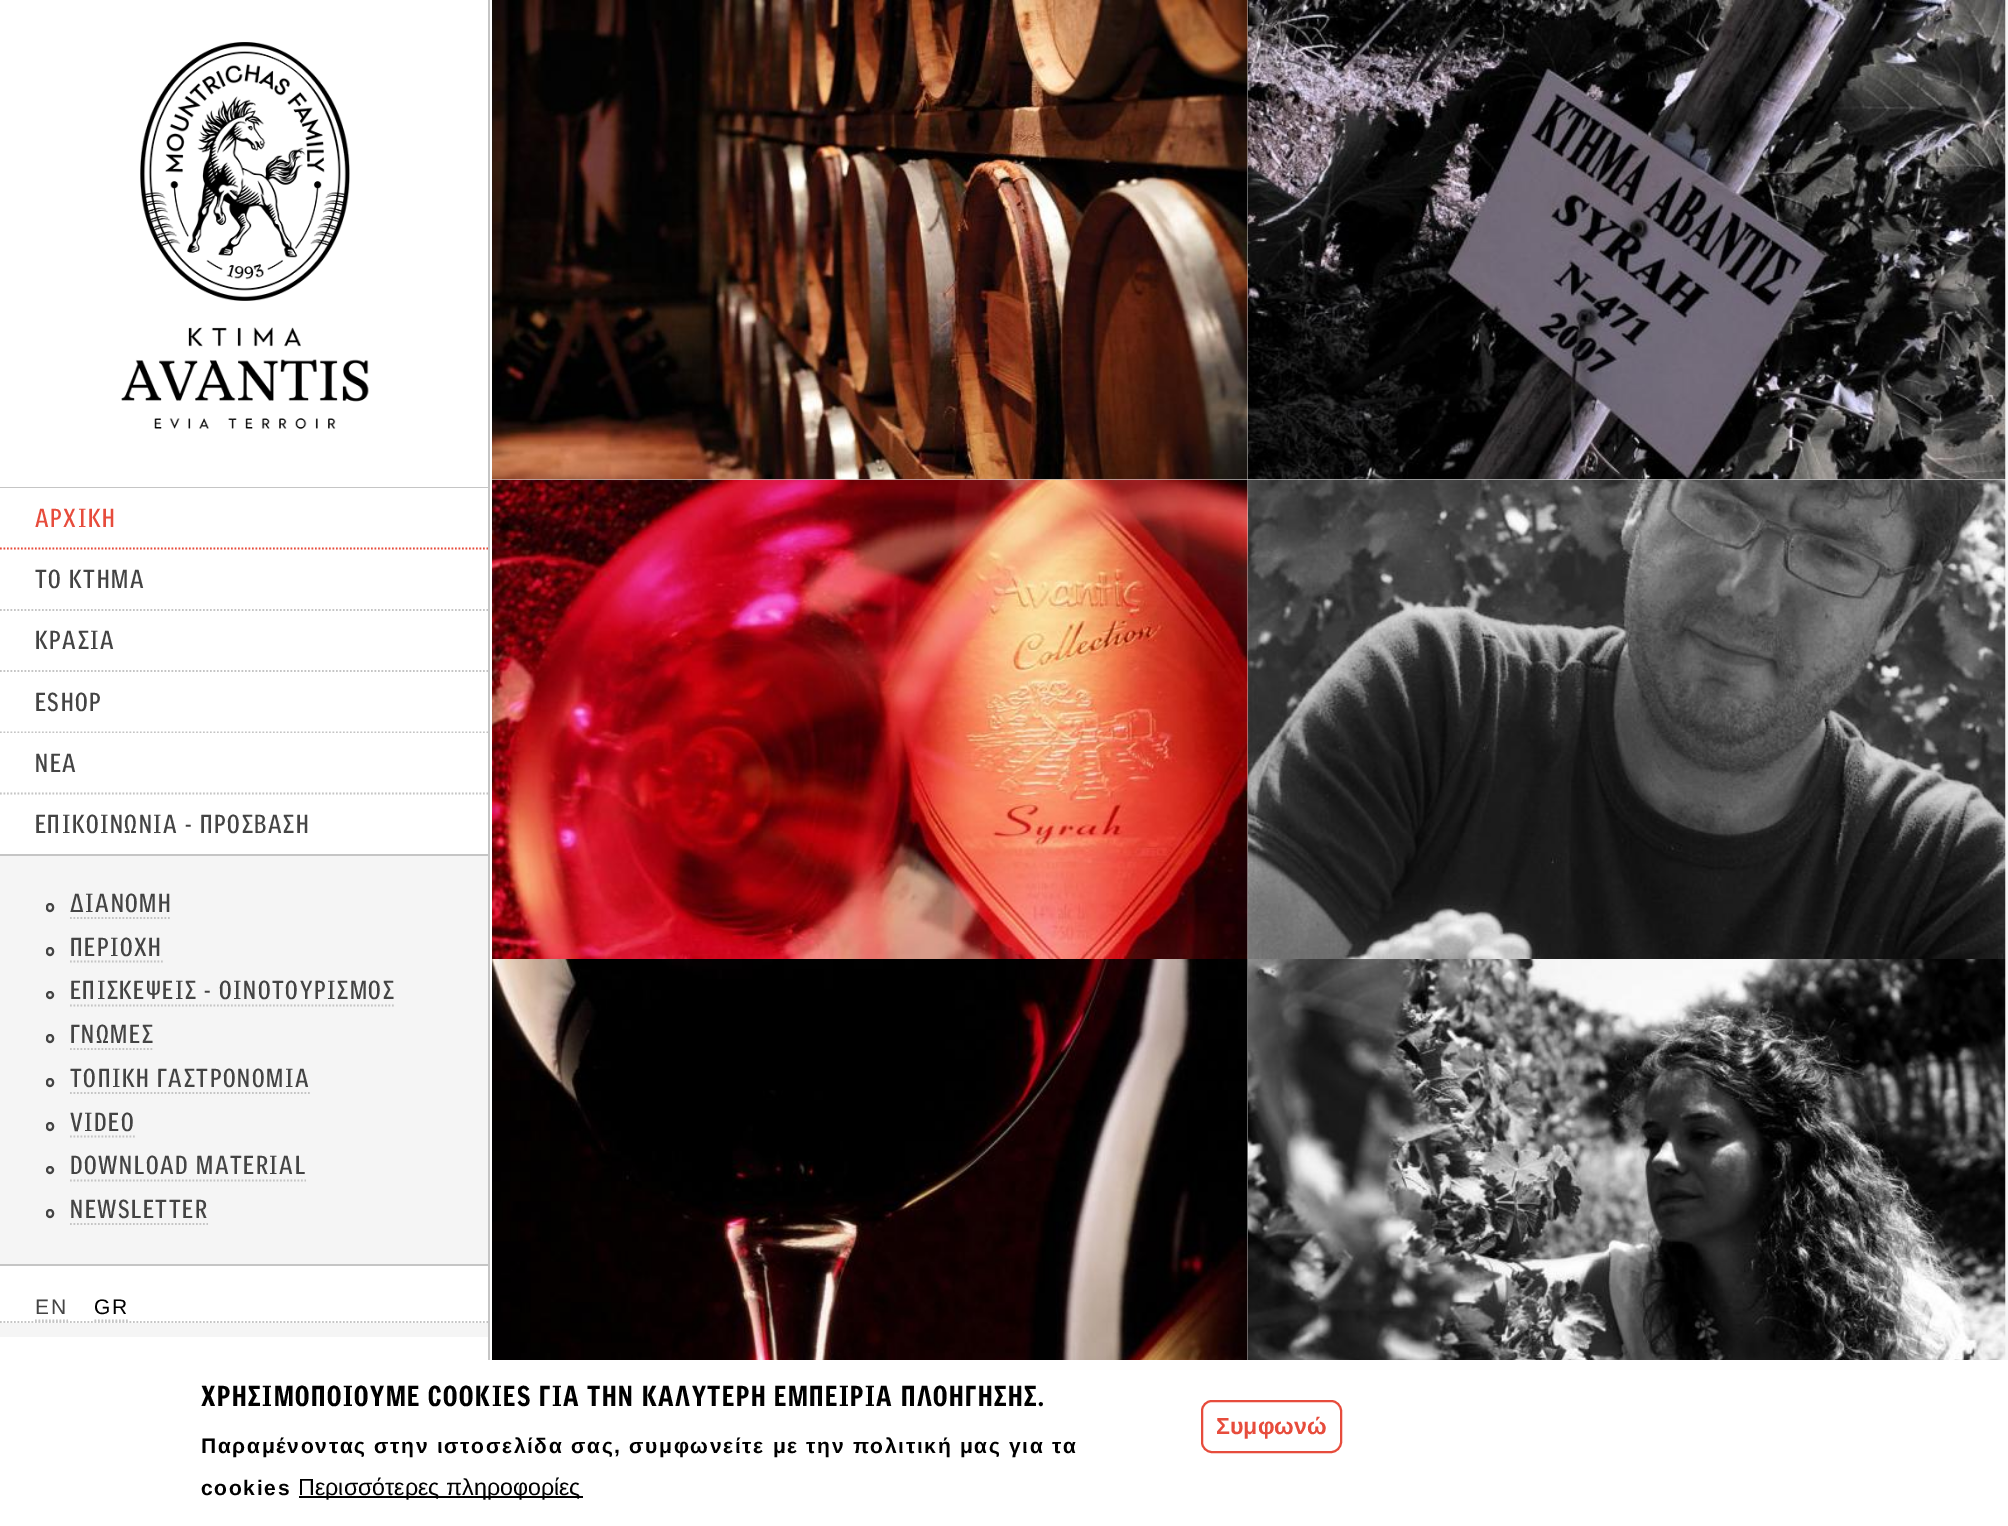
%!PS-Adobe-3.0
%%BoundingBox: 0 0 2008 1526
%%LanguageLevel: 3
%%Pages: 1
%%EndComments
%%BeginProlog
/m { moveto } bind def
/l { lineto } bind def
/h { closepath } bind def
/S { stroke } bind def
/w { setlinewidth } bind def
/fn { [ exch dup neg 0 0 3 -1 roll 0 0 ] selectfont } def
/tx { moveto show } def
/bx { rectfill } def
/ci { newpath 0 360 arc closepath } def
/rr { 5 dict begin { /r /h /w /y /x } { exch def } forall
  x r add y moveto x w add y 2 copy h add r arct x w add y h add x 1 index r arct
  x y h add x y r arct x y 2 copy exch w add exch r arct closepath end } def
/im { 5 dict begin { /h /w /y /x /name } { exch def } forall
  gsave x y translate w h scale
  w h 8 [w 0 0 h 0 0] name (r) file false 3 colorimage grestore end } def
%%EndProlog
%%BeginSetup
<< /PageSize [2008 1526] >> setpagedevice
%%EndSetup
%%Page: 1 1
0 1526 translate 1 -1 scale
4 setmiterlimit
0.961 setgray
0 0 2008 1526 bx
1 setgray
-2 -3 m -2 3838 l 492 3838 l 492 -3 l h 0 0 m 0 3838 l 490 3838 l 490 0 l h eofill
0.773 setgray
488 0 2 1360 bx
1 setgray
0 0 488 487 bx
0.773 setgray
0 487 488 1 bx
(image0.raw) 121 42 248 387 im
1 setgray
0 488 488 245 bx
0.906 0.298 0.235 setrgbcolor
1.8 w
[1.75 1.75] 0 setdash
0 548.5 m 488 548.5 l S
/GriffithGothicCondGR-Bold 25.25 fn
35 527 m 1.68 0 (ΑΡΧΙΚΗ) ashow
0.773 setgray
0 610 m 488 610 l S
0.267 setgray
35 588 m 1.68 0 (ΤΟ ΚΤΗΜΑ) ashow
0.773 setgray
0 671 m 488 671 l S
0.267 setgray
35 649 m 1.68 0 (ΚΡΑΣΙΑ) ashow
0.773 setgray
0 732.5 m 488 732.5 l S
0.267 setgray
35 711 m 1.68 0 (ESHOP) ashow
1 setgray
0 733 488 121 bx
0.773 setgray
0 793.5 m 488 793.5 l S
0.267 setgray
35 772 m 1.68 0 (ΝΕΑ) ashow
0.773 setgray
0 854 488 2 bx
0.267 setgray
35 833 m 1.68 0 (ΕΠΙΚΟΙΝΩΝΙΑ - ΠΡΟΣΒΑΣΗ) ashow
2 w
[] 0 setdash
47 904 6 7 3 rr S
70 912 m 1.68 0 (ΔΙΑΝΟΜΗ) ashow
0.773 setgray
1.8 w
[1.75 1.75] 0 setdash
70 918 m 171.5 918 l S
0.267 setgray
2 w
[] 0 setdash
47 948 6 7 3 rr S
70 956 m 1.68 0 (ΠΕΡΙΟΧΗ) ashow
0.773 setgray
1.8 w
[1.75 1.75] 0 setdash
70 961.5 m 163 961.5 l S
0.267 setgray
2 w
[] 0 setdash
50 995 3 ci S
70 999 m 1.68 0 (ΕΠΙΣΚΕΨΕΙΣ - ΟΙΝΟΤΟΥΡΙΣΜΟΣ) ashow
0.773 setgray
1.8 w
[1.75 1.75] 0 setdash
70 1005.5 m 395.5 1005.5 l S
0.267 setgray
2 w
[] 0 setdash
47 1035 6 7 3 rr S
70 1043 m 1.68 0 (ΓΝΩΜΕΣ) ashow
0.773 setgray
1.8 w
[1.75 1.75] 0 setdash
70 1049 m 154 1049 l S
0.267 setgray
2 w
[] 0 setdash
47 1079 6 7 3 rr S
70 1087 m 1.68 0 (ΤΟΠΙΚΗ ΓΑΣΤΡΟΝΟΜΙΑ) ashow
0.773 setgray
1.8 w
[1.75 1.75] 0 setdash
70 1093 m 310 1093 l S
0.267 setgray
2 w
[] 0 setdash
47 1123 6 7 3 rr S
70 1131 m 1.68 0 (VIDEO) ashow
0.773 setgray
1.8 w
[1.75 1.75] 0 setdash
70 1136.5 m 135 1136.5 l S
0.267 setgray
2 w
[] 0 setdash
50 1170 3 ci S
70 1174 m 1.68 0 (DOWNLOAD MATERIAL) ashow
0.773 setgray
1.8 w
[1.75 1.75] 0 setdash
70 1180.5 m 306 1180.5 l S
0.267 setgray
2 w
[] 0 setdash
47 1210 6 7 3 rr S
70 1218 m 1.68 0 (NEWSLETTER) ashow
0.773 setgray
1.8 w
[1.75 1.75] 0 setdash
70 1224 m 208 1224 l S
1 setgray
0 1266 488 57 bx
0.773 setgray
0 1264 488 2 bx
0 1322 m 488 1322 l S
/LiberationSans-Regular 21 fn
0.267 setgray
35 1314 m 1.68 0 (EN) ashow
0.773 setgray
35 1320.5 m 68 1320.5 l S
0 setgray
94 1314 m 1.68 0 (GR) ashow
0.773 setgray
94.5 1320.5 m 129.5 1320.5 l S
1 setgray
0 1337 488 23 bx
(image1.raw) 492 0 756 480 im
(image2.raw) 1247 0 759 480 im
(image3.raw) 492 479 756 480 im
(image4.raw) 1247 479 759 480 im
(image5.raw) 492 959 756 401 im
(image6.raw) 1247 959 759 401 im
0 1360 2008 166 bx
/GriffithGothicCondGR-Black 28 fn
0 setgray
201 1406 m 1.68 0 (ΧΡΗΣΙΜΟΠΟΙΟΥΜΕ COOKIES ΓΙΑ ΤΗΝ ΚΑΛΥΤΕΡΗ ΕΜΠΕΙΡΙΑ ΠΛΟΗΓΗΣΗΣ.) ashow
/LiberationSans-Bold 21 fn
201 1453 m 1.68 0 (Παραμένοντας στην ιστοσελίδα σας, συμφωνείτε με την πολιτική μας για τα) ashow
201 1495 m 1.68 0 (cookies) ashow
299 1496 284 2 bx
/LiberationSans-Regular 23.25 fn
(Περισσότερες πληροφορίες) 298 1495 tx
0.906 0.298 0.235 setrgbcolor
2 w
[] 0 setdash
1202 1401 139 51 10 rr S
/LiberationSans-Bold 23.25 fn
(Συμφωνώ) 1216 1434 tx
showpage
%%EOF
